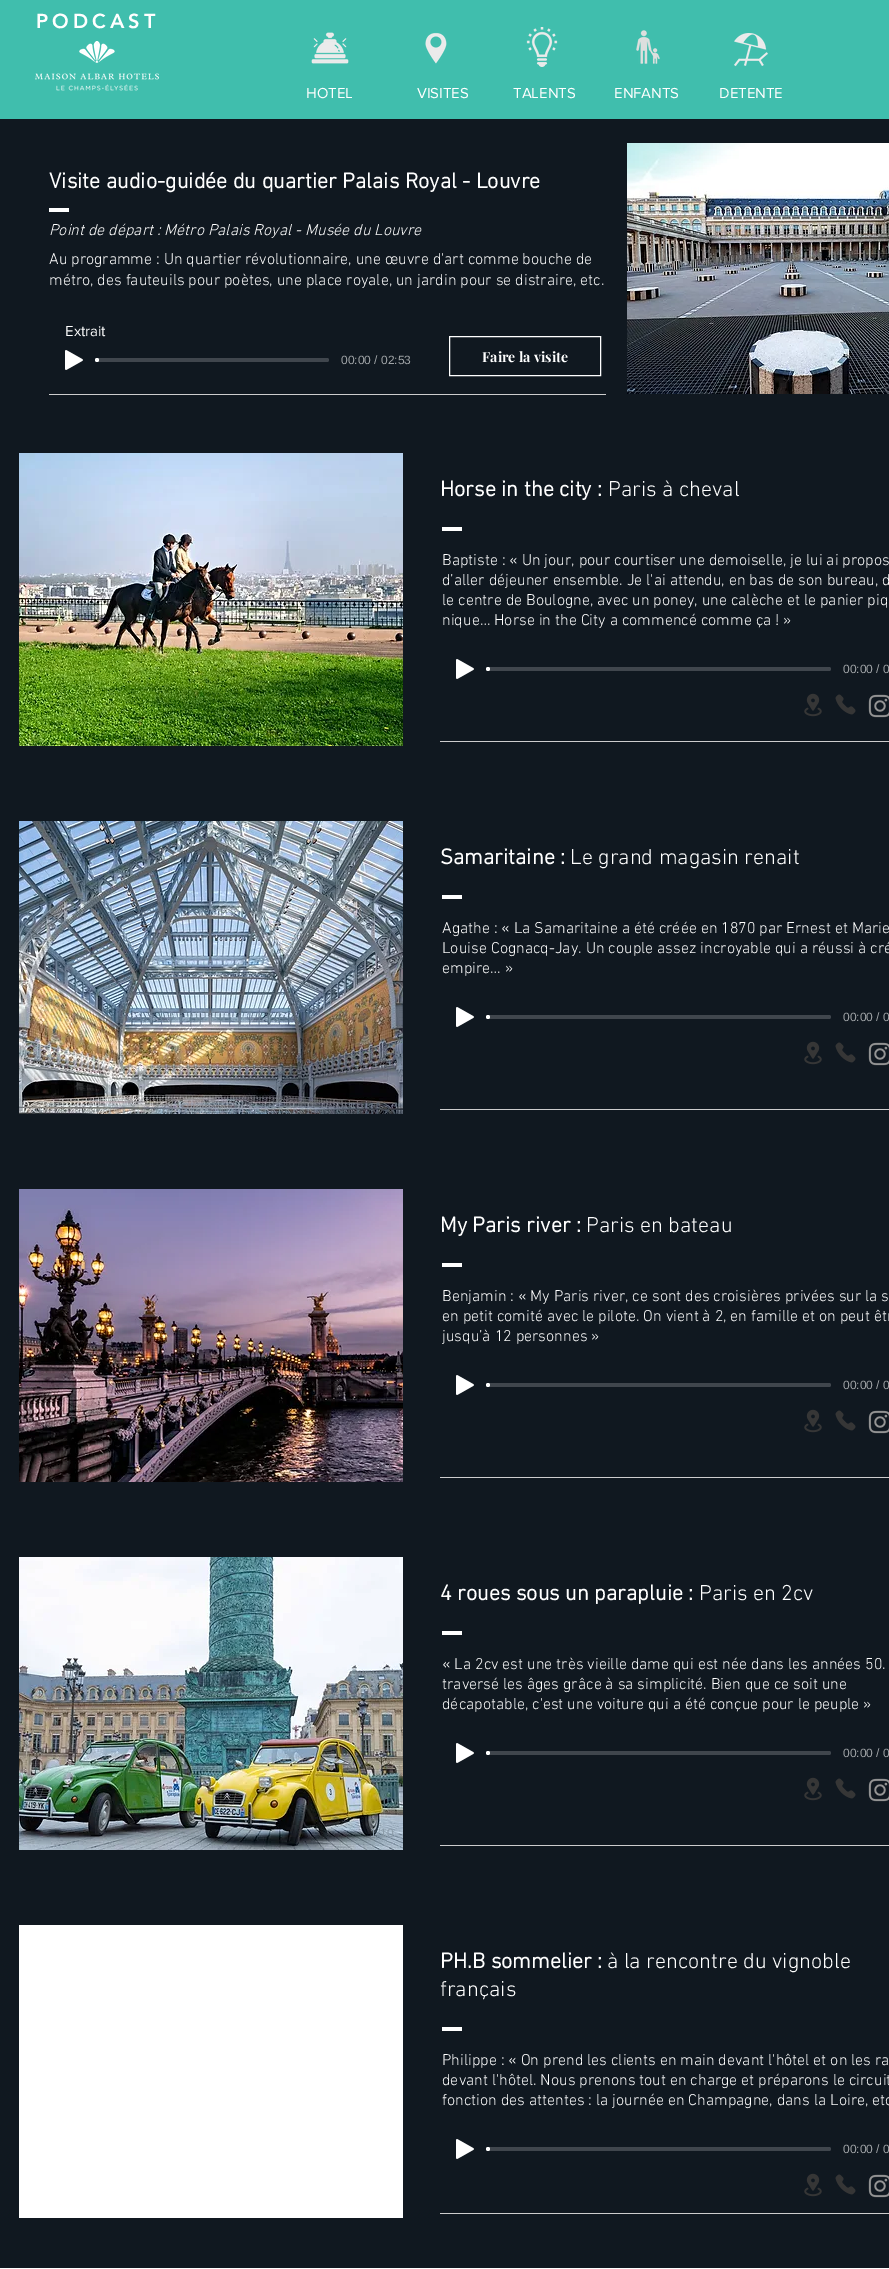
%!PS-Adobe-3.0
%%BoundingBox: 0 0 889 2269
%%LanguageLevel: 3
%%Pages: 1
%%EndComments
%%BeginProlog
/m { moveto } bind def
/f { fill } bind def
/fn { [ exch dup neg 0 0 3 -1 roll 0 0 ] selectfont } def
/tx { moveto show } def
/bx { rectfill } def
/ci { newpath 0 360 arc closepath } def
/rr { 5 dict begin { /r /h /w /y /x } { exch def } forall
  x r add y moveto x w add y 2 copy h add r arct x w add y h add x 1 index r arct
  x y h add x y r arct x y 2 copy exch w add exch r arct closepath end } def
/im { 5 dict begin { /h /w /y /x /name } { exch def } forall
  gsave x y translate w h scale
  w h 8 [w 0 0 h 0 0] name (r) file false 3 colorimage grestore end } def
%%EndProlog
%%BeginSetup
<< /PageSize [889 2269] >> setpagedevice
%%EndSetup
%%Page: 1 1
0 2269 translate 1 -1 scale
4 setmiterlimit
1 setgray
0 0 889 2269 bx
0.251 0.745 0.678 setrgbcolor
0 0 889 119 bx
/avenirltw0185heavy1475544-Black 20 fn
1 setgray
36 28 m 4 0 (PODCAST) ashow
(image0.raw) 35 41 124 50 im
(image1.raw) 311 32 38 32 im
(image2.raw) 425 32 22 32 im
(image3.raw) 526 27 32 40 im
(image4.raw) 636 30 24 34 im
(image5.raw) 734 33 34 34 im
/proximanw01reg-Regular 15 fn
(HOTEL) 306 98 tx
(VISITES) 417 98 tx
(TALENTS) 513 98 tx
(ENFANTS) 614 98 tx
(DETENTE) 719 98 tx
0.063 0.094 0.125 setrgbcolor
0 119 889 2149 bx
/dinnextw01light-Bold 22 fn
1 setgray
(Visite audio-guidée du quartier Palais Royal - Louvre) 49 188 tx
(image6.raw) 627 143 262 251 im
49 208 20 4 bx
/dinnextw01light-LightItalic 16 fn
(Point de départ : Métro Palais Royal - Musée du Louvre) 49 235 tx
/dinnextw01light-Light 16 fn
(Au programme : Un quartier révolutionnaire, une œuvre d'art comme bouche de) 49 264 tx
(métro, des fauteuils pour poètes, une place royale, un jardin pour se distraire, etc.) 49 285 tx
/proximanw01reg-Regular 15 fn
(Extrait) 65 336 tx
(image7.raw) 65 350 18 20 im
0.251 0.275 0.302 setrgbcolor
97 358 232 4 2 rr f
1 setgray
97 360 2 ci f
/LiberationSans-Regular 12 fn
0.624 0.639 0.651 setrgbcolor
(00:00 / 02:53) 341 364 tx
1 setgray
449.5 336.5 151 39 rectstroke
/PlayfairDisplay-Bold 14 fn
(Faire la visite) 482 362 tx
0.804 setgray
49 394 557 1 bx
(image8.raw) 19 453 384 293 im
/dinnextw01light-Bold 22 fn
1 setgray
(Horse in the city :) 440 496 tx
/dinnextw01light-Light 22 fn
(Paris à cheval) 608 496 tx
442 527 20 4 bx
/dinnextw01light-Light 16 fn
(Baptiste : « Un jour, pour courtiser une demoiselle, je lui ai propos) 442 565 tx
(d’aller déjeuner ensemble. Je l'ai attendu, en bas de son bureau, d) 442 585 tx
(le centre de Boulogne, avec un poney, une calèche et le panier piq) 442 605 tx
(nique… Horse in the City a commencé comme ça ! ») 442 625 tx
(image7.raw) 456 659 18 20 im
0.251 0.275 0.302 setrgbcolor
488 667 343 4 2 rr f
1 setgray
488 669 2 ci f
/LiberationSans-Regular 12 fn
0.624 0.639 0.651 setrgbcolor
(00:00 / 0) 843 673 tx
(image9.raw) 804 693 18 24 im
(image10.raw) 835 694 21 21 im
(image11.raw) 868 694 21 24 im
0.804 setgray
440 741 449 1 bx
(image12.raw) 19 821 384 293 im
/dinnextw01light-Bold 22 fn
1 setgray
(Samaritaine :) 440 864 tx
/dinnextw01light-Light 22 fn
(Le grand magasin renait) 570 864 tx
442 895 20 4 bx
/dinnextw01light-Light 16 fn
(Agathe : « La Samaritaine a été créée en 1870 par Ernest et Marie) 442 933 tx
(Louise Cognacq-Jay. Un couple assez incroyable qui a réussi à cré) 442 953 tx
(empire… ») 442 973 tx
(image7.raw) 456 1007 18 20 im
0.251 0.275 0.302 setrgbcolor
488 1015 343 4 2 rr f
1 setgray
488 1017 2 ci f
/LiberationSans-Regular 12 fn
0.624 0.639 0.651 setrgbcolor
(00:00 / 0) 843 1021 tx
(image9.raw) 804 1041 18 24 im
(image10.raw) 835 1042 21 21 im
(image11.raw) 868 1042 21 24 im
0.804 setgray
440 1109 449 1 bx
/dinnextw01light-Bold 22 fn
1 setgray
(My Paris river :) 440 1232 tx
/dinnextw01light-Light 22 fn
(Paris en bateau) 586 1232 tx
442 1263 20 4 bx
/dinnextw01light-Light 16 fn
(Benjamin : « My Paris river, ce sont des croisières privées sur la s) 442 1301 tx
(en petit comité avec le pilote. On vient à 2, en famille et on peut êtr) 442 1321 tx
(jusqu’à 12 personnes ») 442 1341 tx
(image7.raw) 456 1375 18 20 im
0.251 0.275 0.302 setrgbcolor
488 1383 343 4 2 rr f
1 setgray
488 1385 2 ci f
/LiberationSans-Regular 12 fn
0.624 0.639 0.651 setrgbcolor
(00:00 / 0) 843 1389 tx
(image9.raw) 804 1409 18 24 im
(image10.raw) 835 1410 21 21 im
(image11.raw) 868 1410 21 24 im
(image13.raw) 19 1189 384 293 im
0.369 0.333 0.404 setrgbcolor
(1/1) 376 1469 tx
0.804 setgray
440 1477 449 1 bx
/dinnextw01light-Bold 22 fn
1 setgray
(4 roues sous un parapluie :) 440 1600 tx
/dinnextw01light-Light 22 fn
(Paris en 2cv) 699 1600 tx
442 1631 20 4 bx
/dinnextw01light-Light 16 fn
(« La 2cv est une très vieille dame qui est née dans les années 50.) 442 1669 tx
(traversé les âges grâce à sa simplicité. Bien que ce soit une) 442 1689 tx
(décapotable, c'est une voiture qui a été conçue pour le peuple ») 442 1709 tx
(image7.raw) 456 1743 18 20 im
0.251 0.275 0.302 setrgbcolor
488 1751 343 4 2 rr f
1 setgray
488 1753 2 ci f
/LiberationSans-Regular 12 fn
0.624 0.639 0.651 setrgbcolor
(00:00 / 0) 843 1757 tx
(image9.raw) 804 1777 18 24 im
(image10.raw) 835 1778 21 21 im
(image11.raw) 868 1778 21 24 im
(image14.raw) 19 1557 384 293 im
0.549 0.612 0.663 setrgbcolor
(1/10) 370 1837 tx
0.804 setgray
440 1845 449 1 bx
1 setgray
19 1925 384 293 bx
/dinnextw01light-Bold 22 fn
(PH.B sommelier :) 440 1968 tx
/dinnextw01light-Light 22 fn
(à la rencontre du vignoble) 607 1968 tx
(français) 440 1996 tx
442 2027 20 4 bx
/dinnextw01light-Light 16 fn
(Philippe : « On prend les clients en main devant l'hôtel et on les ra) 442 2065 tx
(devant l'hôtel. Nous prenons tout en charge et préparons le circuit) 442 2085 tx
(fonction des attentes : la journée en Champagne, dans la Loire, etc) 442 2105 tx
(image7.raw) 456 2139 18 20 im
0.251 0.275 0.302 setrgbcolor
488 2147 343 4 2 rr f
1 setgray
488 2149 2 ci f
/LiberationSans-Regular 12 fn
0.624 0.639 0.651 setrgbcolor
(00:00 / 0) 843 2153 tx
(image9.raw) 804 2173 18 24 im
(image10.raw) 835 2174 21 21 im
(image11.raw) 868 2174 21 24 im
0.804 setgray
440 2213 449 1 bx
showpage
%%EOF
